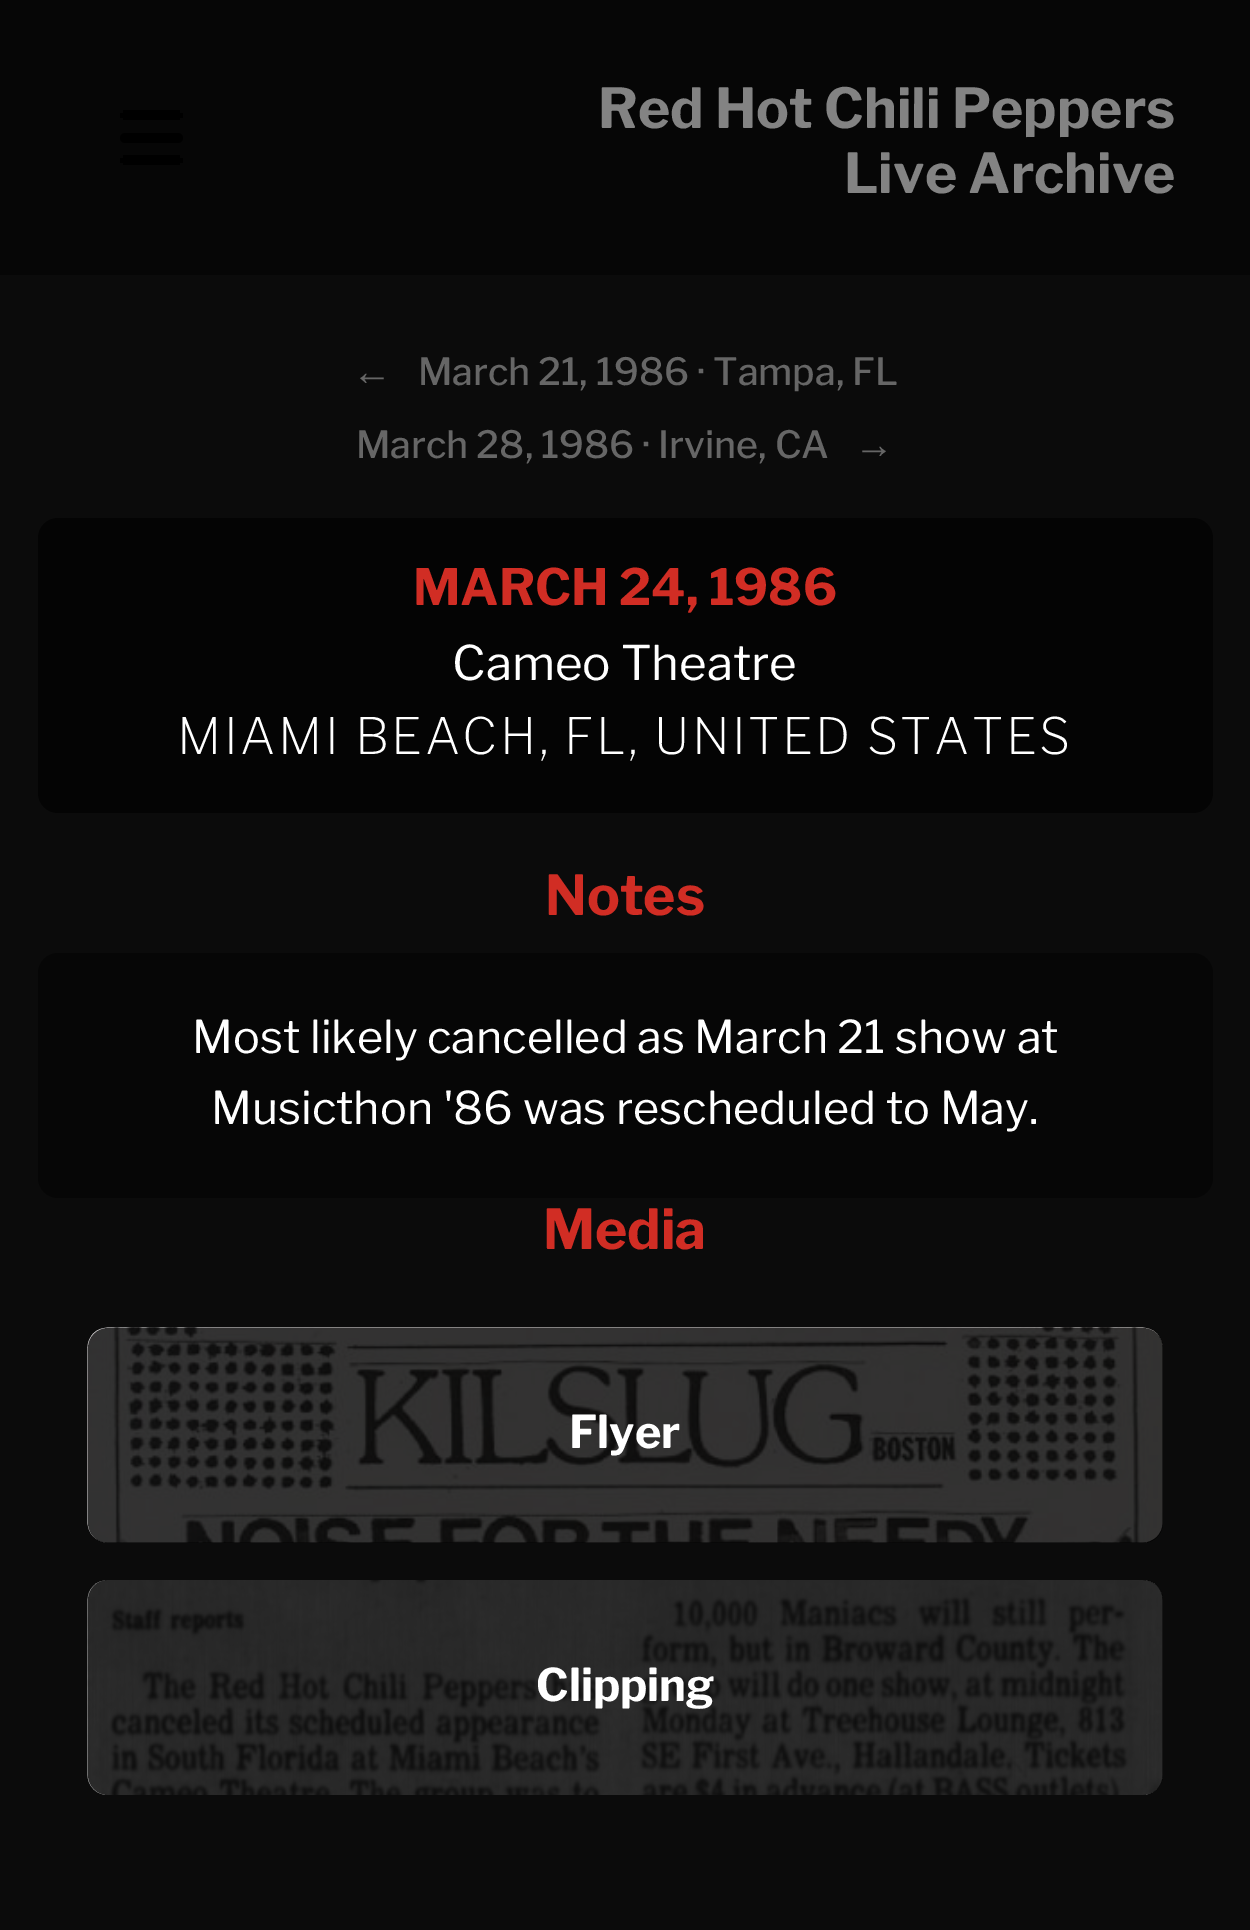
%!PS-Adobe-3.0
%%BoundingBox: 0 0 1250 1930
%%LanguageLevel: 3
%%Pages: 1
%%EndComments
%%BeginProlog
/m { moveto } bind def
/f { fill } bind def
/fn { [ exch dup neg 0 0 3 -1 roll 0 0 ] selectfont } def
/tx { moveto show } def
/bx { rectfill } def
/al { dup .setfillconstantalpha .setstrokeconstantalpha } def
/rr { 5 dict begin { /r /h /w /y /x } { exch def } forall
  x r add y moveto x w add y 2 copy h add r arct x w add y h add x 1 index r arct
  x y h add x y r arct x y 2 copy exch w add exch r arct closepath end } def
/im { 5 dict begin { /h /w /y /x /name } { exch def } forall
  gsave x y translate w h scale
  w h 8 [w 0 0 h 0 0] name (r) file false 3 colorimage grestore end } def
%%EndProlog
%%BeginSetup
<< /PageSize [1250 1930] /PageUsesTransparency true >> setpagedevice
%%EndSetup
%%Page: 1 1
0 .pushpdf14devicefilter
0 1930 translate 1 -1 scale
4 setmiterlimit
0.043 setgray
0 0 1250 1930 bx
0.024 setgray
0 0 1250 275 bx
0 setgray
123 110 57 10 bx
173 113 10 5 bx
120 113 10 5 bx
120 133 63 10 5 rr f
173 158 10 5 bx
123 155 57 10 bx
120 158 10 5 bx
/LibreFranklin-Bold 55 fn
0.514 setgray
(Red Hot Chili Peppers) 598 128 tx
(Live Archive) 844 193 tx
/LiberationSans-Bold 40 fn
0.4 setgray
(←) 352 385 tx
/LibreFranklin-Medium 37.5 fn
(March 21, 1986 · Tampa, FL) 418 385 tx
(March 28, 1986 · Irvine, CA) 356 458 tx
/LiberationSans-Bold 40 fn
(→) 854 458 tx
0.016 setgray
38 518 1175 295 20 rr f
/LibreFranklin-Bold 50 fn
0.82 0.176 0.141 setrgbcolor
(MARCH 24, 1986) 413 605 tx
/LibreFranklin-Regular 47.5 fn
1 setgray
(Cameo Theatre) 452 680 tx
/LibreFranklin-ExtraLight 50 fn
177 754 m 2.5 0 (MIAMI BEACH, FL, UNITED STATES) ashow
/LibreFranklin-Bold 55 fn
0.82 0.176 0.141 setrgbcolor
(Notes) 545 915 tx
0.024 setgray
38 953 1175 245 20 rr f
/LibreFranklin-Regular 45 fn
1 setgray
(Most likely cancelled as March 21 show at) 192 1053 tx
(Musicthon '86 was rescheduled to May.) 211 1124 tx
/LibreFranklin-Bold 55 fn
0.82 0.176 0.141 setrgbcolor
(Media) 543 1249 tx
(image0.raw) 87 1327 1076 216 im
0.8 al
0 setgray
88 1328 1075 215 20 rr f
/LibreFranklin-Bold 45 fn
1 al
1 setgray
(Flyer) 569 1448 tx
(image1.raw) 87 1580 1076 215 im
0.8 al
0 setgray
88 1580 1075 215 20 rr f
1 al
1 setgray
(Clipping) 536 1701 tx
.poppdf14devicefilter showpage
%%EOF
